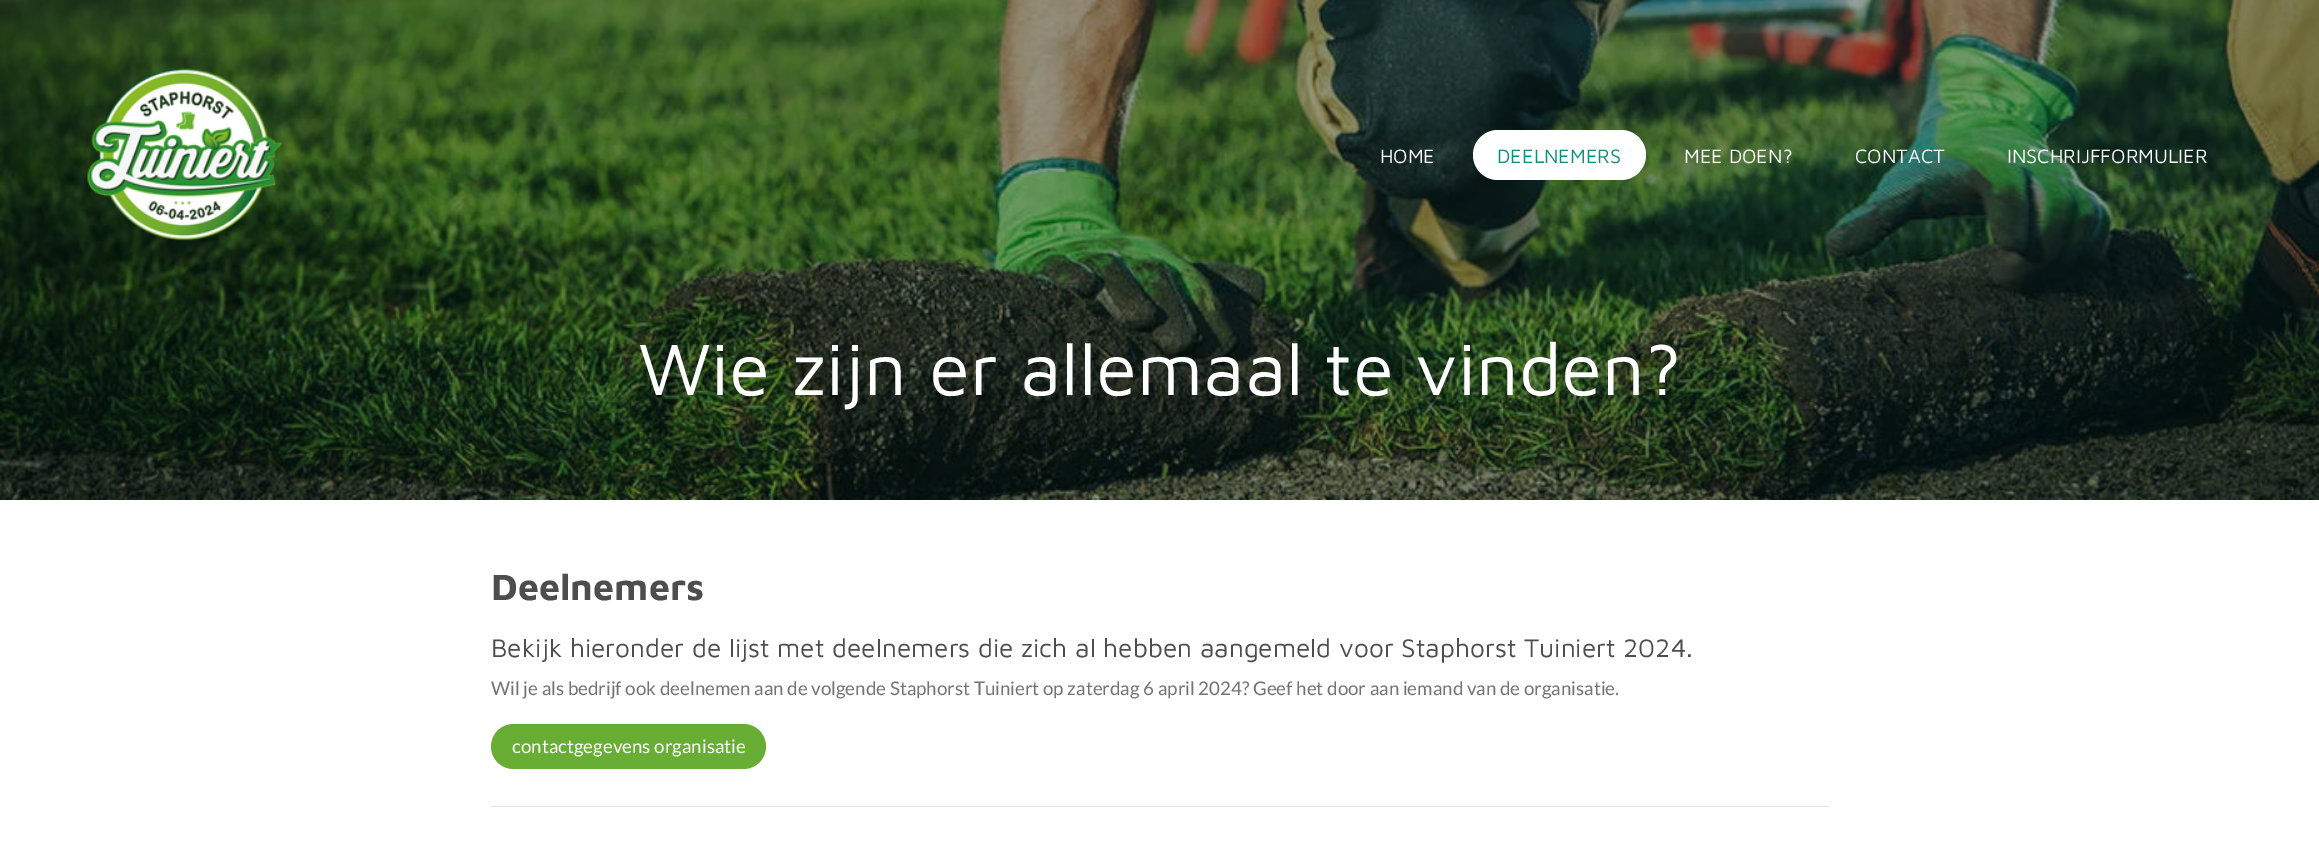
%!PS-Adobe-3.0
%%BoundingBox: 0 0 2319 851
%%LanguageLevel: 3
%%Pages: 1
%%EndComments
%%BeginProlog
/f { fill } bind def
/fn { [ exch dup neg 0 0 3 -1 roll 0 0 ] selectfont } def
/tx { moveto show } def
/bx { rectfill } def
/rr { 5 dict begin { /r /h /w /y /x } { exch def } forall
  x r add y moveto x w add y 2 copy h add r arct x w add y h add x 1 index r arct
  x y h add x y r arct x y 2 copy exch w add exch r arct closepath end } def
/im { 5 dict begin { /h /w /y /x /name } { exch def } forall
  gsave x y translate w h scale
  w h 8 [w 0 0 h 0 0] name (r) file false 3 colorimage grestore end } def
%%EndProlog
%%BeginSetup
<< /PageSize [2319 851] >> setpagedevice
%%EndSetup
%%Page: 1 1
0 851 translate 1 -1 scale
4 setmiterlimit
1 setgray
0 0 2319 851 bx
(image1.raw) 0 0 2319 500 im
(image0.raw) 87 68 196 173 im
/MavenPro-Regular 20 fn
(HOME) 1380 163 tx
1473 130 173 50 25 rr f
0.051 0.565 0.482 setrgbcolor
(DEELNEMERS) 1497 163 tx
1 setgray
(MEE DOEN?) 1684 163 tx
(CONTACT) 1855 163 tx
(INSCHRIJFFORMULIER) 2007 163 tx
/MavenPro-Regular 75 fn
(Wie zijn er allemaal te vinden?) 638 395 tx
/MavenPro-Bold 37.5 fn
0.302 setgray
(Deelnemers) 491 600 tx
/MavenPro-Regular 26.25 fn
(Bekijk hieronder de lijst met deelnemers die zich al hebben aangemeld voor Staphorst Tuiniert 2024.) 491 657 tx
/Lato-Regular 18.75 fn
0.451 setgray
(Wil je als bedrijf ook deelnemen aan de volgende Staphorst Tuiniert op zaterdag 6 april 2024? Geef het door aan iemand van de organisatie.) 491 695 tx
0.408 0.682 0.204 setrgbcolor
491 724 275 45 22.5 rr f
1 setgray
(contactgegevens organisatie) 512 753 tx
0.89 setgray
491 806 1338 1 bx
showpage
%%EOF
